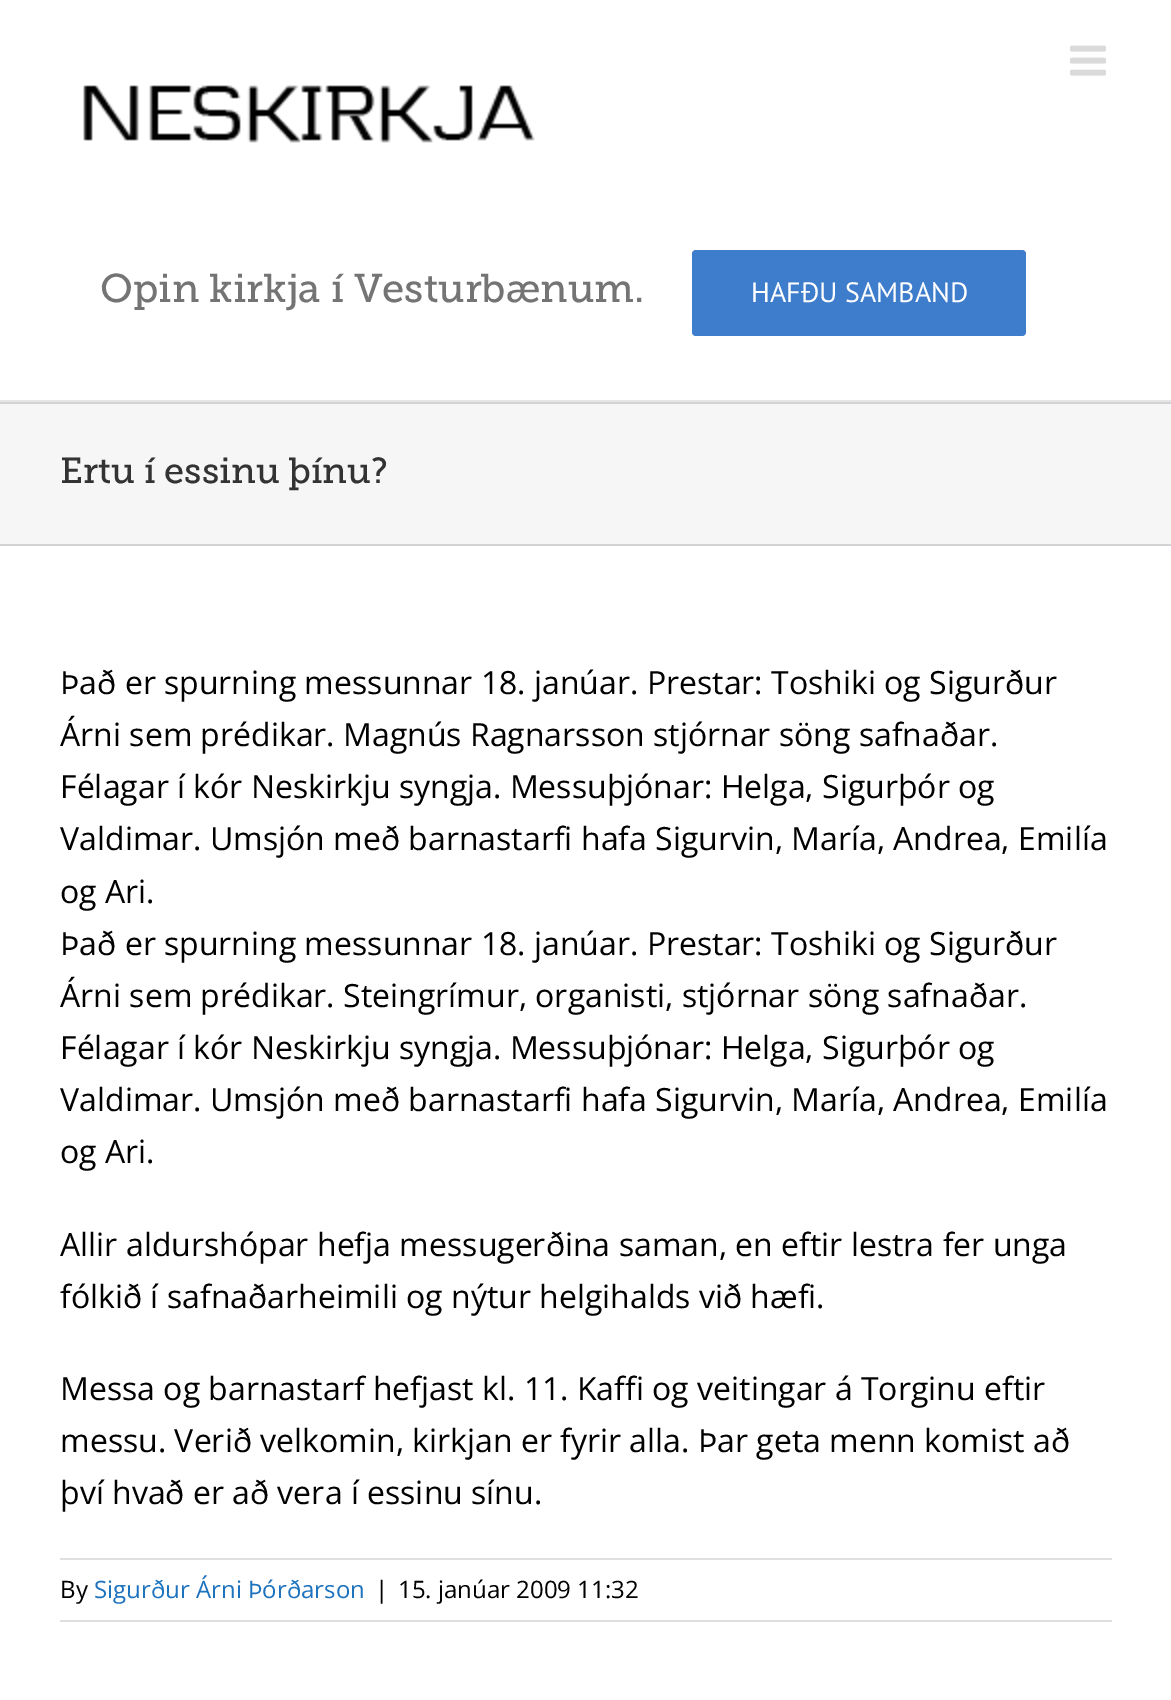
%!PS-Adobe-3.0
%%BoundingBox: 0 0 1171 1700
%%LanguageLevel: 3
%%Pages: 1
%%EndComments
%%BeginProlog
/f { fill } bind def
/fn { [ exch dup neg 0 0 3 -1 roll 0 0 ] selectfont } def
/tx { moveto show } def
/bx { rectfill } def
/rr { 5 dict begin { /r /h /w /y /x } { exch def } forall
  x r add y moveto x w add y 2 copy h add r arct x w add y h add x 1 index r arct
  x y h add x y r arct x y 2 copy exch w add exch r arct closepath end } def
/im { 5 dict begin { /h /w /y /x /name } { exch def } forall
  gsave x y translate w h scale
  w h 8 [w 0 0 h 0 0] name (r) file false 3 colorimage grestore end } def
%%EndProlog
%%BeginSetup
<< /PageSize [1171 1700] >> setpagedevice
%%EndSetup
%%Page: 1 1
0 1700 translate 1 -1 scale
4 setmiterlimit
0.965 setgray
0 0 1171 1700 bx
1 setgray
0 0 1171 400 bx
0.898 setgray
0 400 1171 2 bx
(image0.raw) 1070 45 36 31 im
(image1.raw) 83 85 452 58 im
/MuseoSlab-Regular 40 fn
0.455 setgray
(Opin kirkja í Vesturbænum.) 100 302 tx
0.243 0.486 0.8 setrgbcolor
692 250 334 86 4 rr f
/PTSans-Regular 28 fn
1 setgray
(HAFÐU SAMBAND) 751 302 tx
0.824 0.827 0.831 setrgbcolor
0 402 1171 2 bx
0 544 1171 2 bx
/MuseoSlab-Regular 36 fn
0.2 setgray
(Ertu í essinu þínu?) 60 483 tx
1 setgray
0 546 1171 1154 bx
/OpenSans-Regular 32 fn
0 setgray
(Það er spurning messunnar 18. janúar. Prestar: Toshiki og Sigurður) 60 694 tx
(Árni sem prédikar. Magnús Ragnarsson stjórnar söng safnaðar.) 60 746 tx
(Félagar í kór Neskirkju syngja. Messuþjónar: Helga, Sigurþór og) 60 798 tx
(Valdimar. Umsjón með barnastarfi hafa Sigurvin, María, Andrea, Emilía) 60 850 tx
(og Ari.) 60 903 tx
(Það er spurning messunnar 18. janúar. Prestar: Toshiki og Sigurður) 60 955 tx
(Árni sem prédikar. Steingrímur, organisti, stjórnar söng safnaðar.) 60 1007 tx
(Félagar í kór Neskirkju syngja. Messuþjónar: Helga, Sigurþór og) 60 1059 tx
(Valdimar. Umsjón með barnastarfi hafa Sigurvin, María, Andrea, Emilía) 60 1111 tx
(og Ari.) 60 1163 tx
(Allir aldurshópar hefja messugerðina saman, en eftir lestra fer unga) 60 1256 tx
(fólkið í safnaðarheimili og nýtur helgihalds við hæfi.) 60 1308 tx
(Messa og barnastarf hefjast kl. 11. Kaffi og veitingar á Torginu eftir) 60 1400 tx
(messu. Verið velkomin, kirkjan er fyrir alla. Þar geta menn komist að) 60 1452 tx
(því hvað er að vera í essinu sínu.) 60 1504 tx
0.878 0.871 0.871 setrgbcolor
60 1558 1052 2 bx
60 1620 1052 2 bx
/OpenSans-Regular 24 fn
0 setgray
(By) 60 1598 tx
0.118 0.451 0.745 setrgbcolor
(Sigurður Árni Þórðarson) 94 1598 tx
0 setgray
(|) 375 1598 tx
(15. janúar 2009 11:32) 398 1598 tx
showpage
%%EOF
